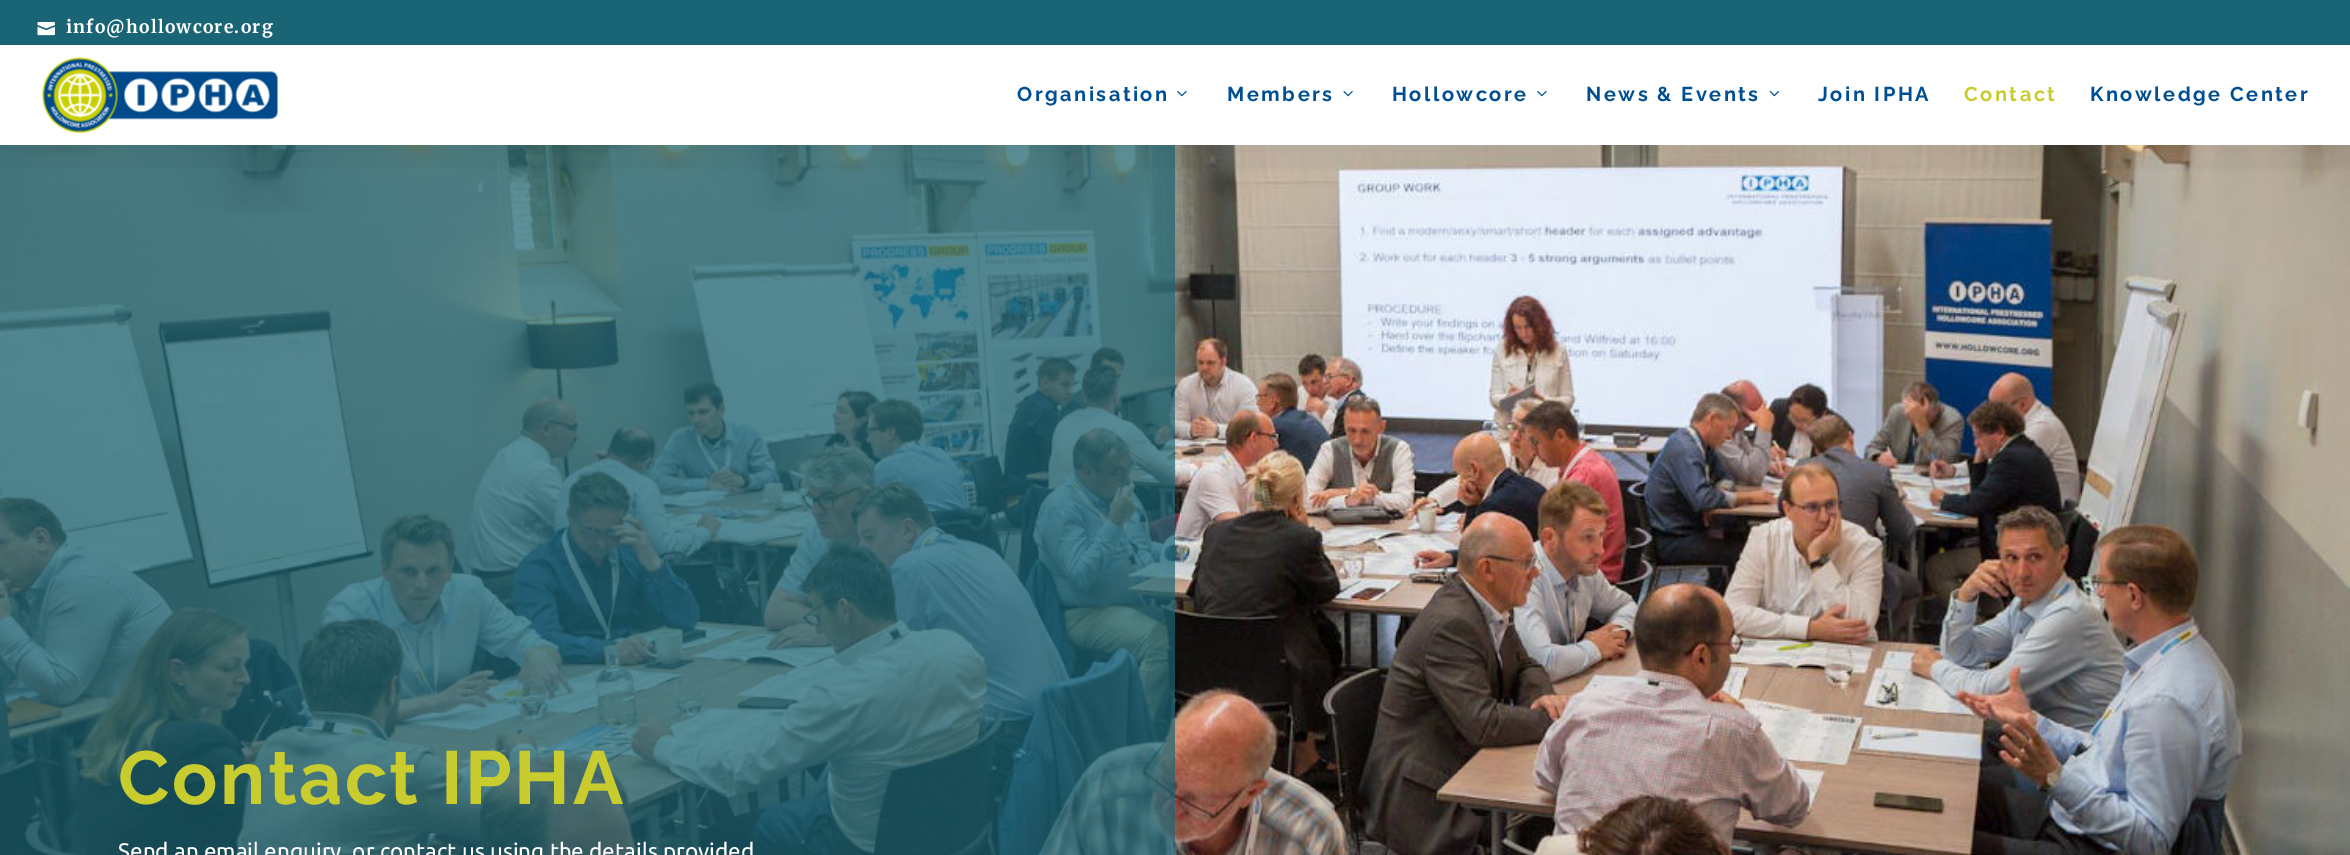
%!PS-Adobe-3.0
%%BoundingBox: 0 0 2350 855
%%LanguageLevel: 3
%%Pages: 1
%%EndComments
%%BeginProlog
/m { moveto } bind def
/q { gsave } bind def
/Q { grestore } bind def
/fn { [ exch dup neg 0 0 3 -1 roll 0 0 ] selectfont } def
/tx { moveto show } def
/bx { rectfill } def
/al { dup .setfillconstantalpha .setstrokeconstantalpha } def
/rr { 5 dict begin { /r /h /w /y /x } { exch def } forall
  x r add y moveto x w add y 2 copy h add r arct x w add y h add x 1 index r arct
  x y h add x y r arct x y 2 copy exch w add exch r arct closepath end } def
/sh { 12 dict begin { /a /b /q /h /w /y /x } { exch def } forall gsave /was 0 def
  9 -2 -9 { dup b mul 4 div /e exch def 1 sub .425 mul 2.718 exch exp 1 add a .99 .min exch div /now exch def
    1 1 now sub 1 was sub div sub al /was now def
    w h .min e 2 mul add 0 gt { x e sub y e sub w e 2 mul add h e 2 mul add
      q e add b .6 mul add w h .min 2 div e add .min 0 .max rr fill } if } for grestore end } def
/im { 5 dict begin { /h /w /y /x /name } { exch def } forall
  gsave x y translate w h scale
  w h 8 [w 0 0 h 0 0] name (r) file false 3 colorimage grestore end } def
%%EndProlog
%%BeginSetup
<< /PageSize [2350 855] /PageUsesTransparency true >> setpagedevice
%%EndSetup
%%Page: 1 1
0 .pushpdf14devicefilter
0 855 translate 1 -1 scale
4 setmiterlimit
1 setgray
0 0 2350 855 bx
(image5.raw) 0 145 2350 710 im
0.7 al
0.098 0.396 0.459 setrgbcolor
0 145 1175 710 bx
q
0 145 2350 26 rectclip
1 al
0 setgray
0 45 2350 100 0 31 0.1 sh
Q
1 al
0 0 2350 45 bx
(image0.raw) 37 22 18 14 im
/Merriweather-Bold 17.5 fn
1 setgray
66 33 m 1.25 0 (info@hollowcore.org) ashow
(image1.raw) 42 57 236 76 im
/Raleway-Bold 20 fn
0 0.306 0.576 setrgbcolor
1017 101 m 2.5 0 (Organisation) ashow
(image2.raw) 1177 91 10 6 im
1227 101 m 2.5 0 (Members) ashow
(image3.raw) 1343 91 10 6 im
1392 101 m 2.5 0 (Hollowcore) ashow
(image2.raw) 1537 91 10 6 im
1586 101 m 2.5 0 (News & Events) ashow
(image4.raw) 1769 91 10 6 im
1818 101 m 2.5 0 (Join IPHA) ashow
0.788 0.8 0.18 setrgbcolor
1964 101 m 2.5 0 (Contact) ashow
0 0.306 0.576 setrgbcolor
2090 101 m 2.5 0 (Knowledge Center) ashow
/Raleway-Bold 75 fn
0.788 0.8 0.18 setrgbcolor
118 804 m 2.5 0 (Contact IPHA) ashow
/Ubuntu-Regular 22.5 fn
1 setgray
(Send an email enquiry, or contact us using the details provided) 118 859 tx
.poppdf14devicefilter showpage
%%EOF
